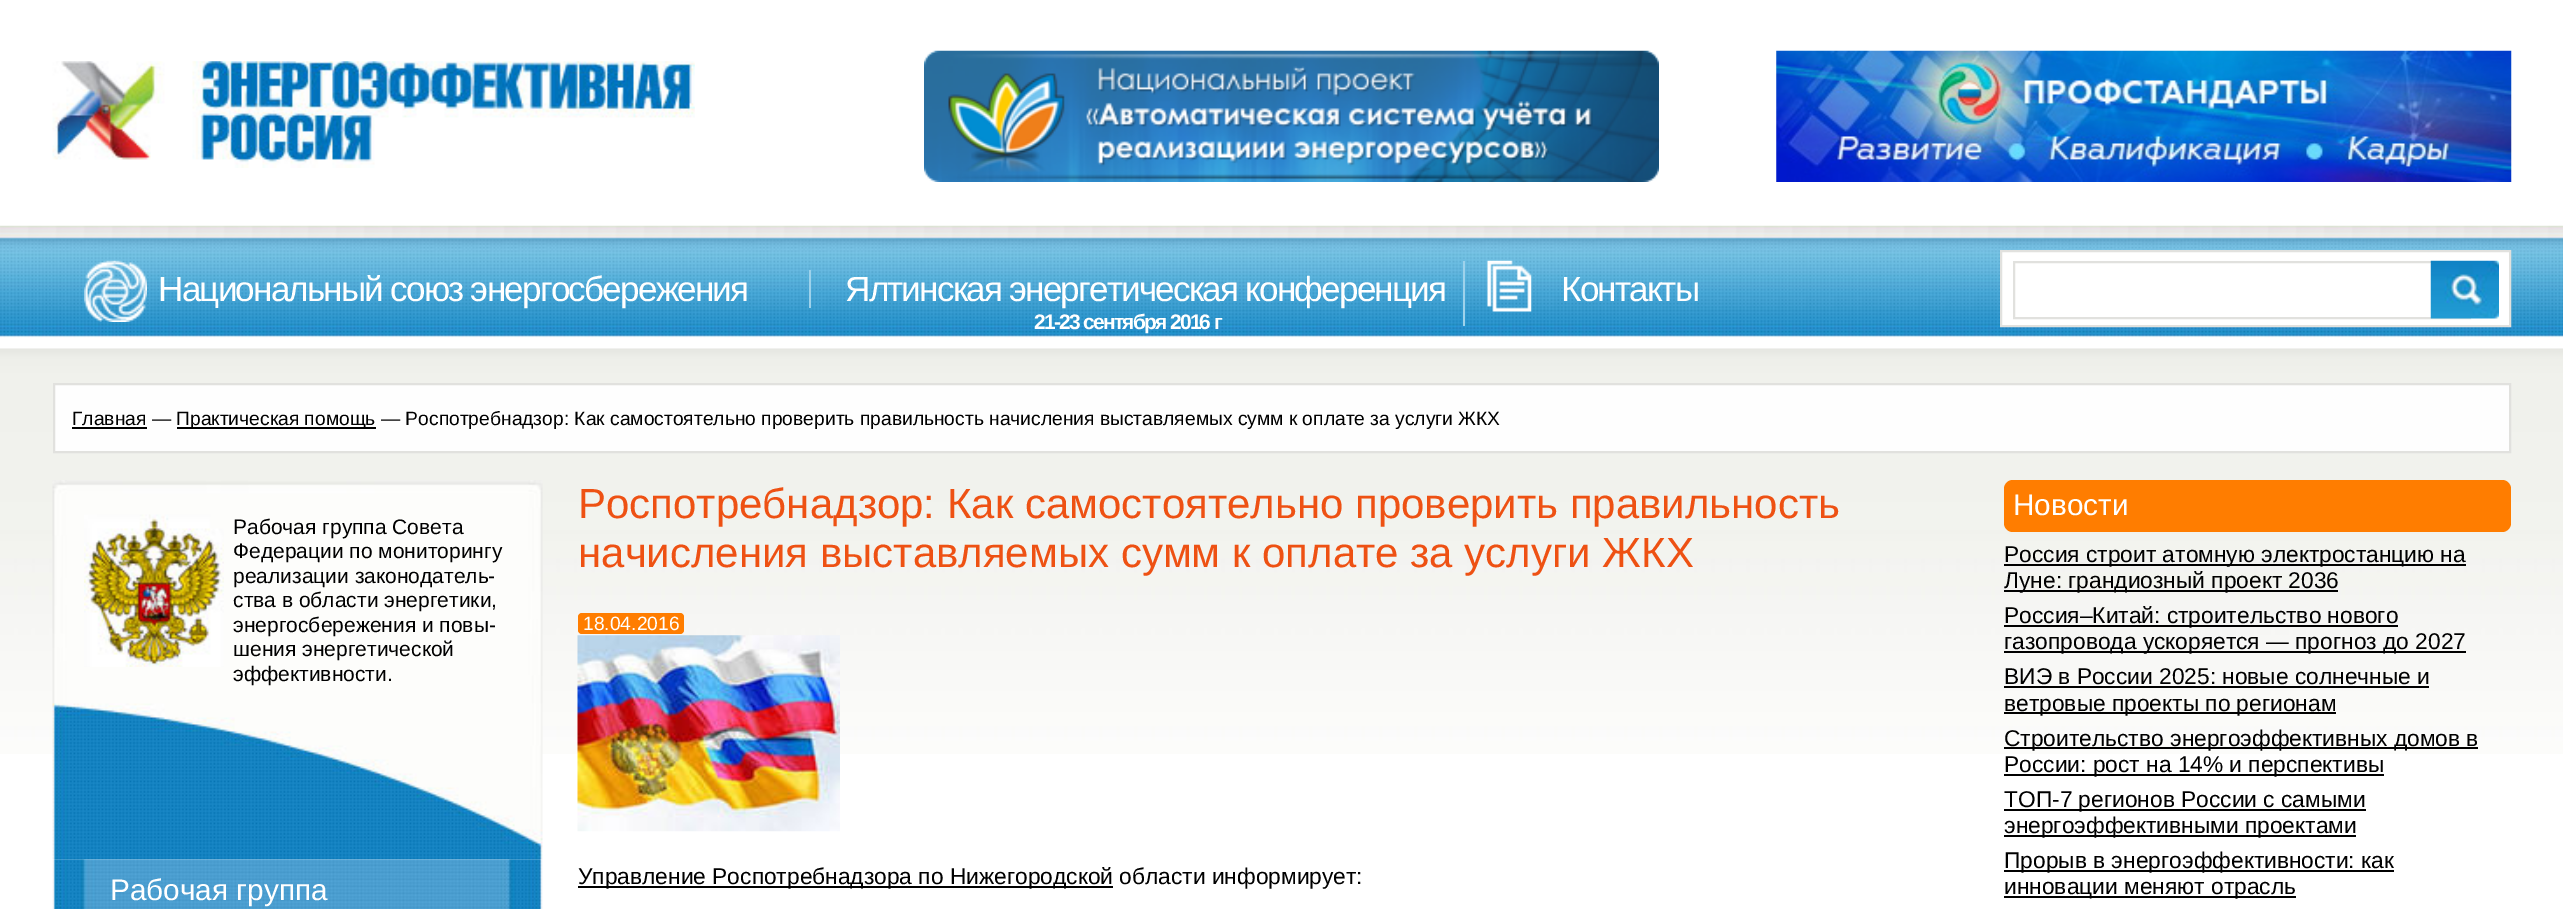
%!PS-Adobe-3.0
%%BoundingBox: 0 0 2563 909
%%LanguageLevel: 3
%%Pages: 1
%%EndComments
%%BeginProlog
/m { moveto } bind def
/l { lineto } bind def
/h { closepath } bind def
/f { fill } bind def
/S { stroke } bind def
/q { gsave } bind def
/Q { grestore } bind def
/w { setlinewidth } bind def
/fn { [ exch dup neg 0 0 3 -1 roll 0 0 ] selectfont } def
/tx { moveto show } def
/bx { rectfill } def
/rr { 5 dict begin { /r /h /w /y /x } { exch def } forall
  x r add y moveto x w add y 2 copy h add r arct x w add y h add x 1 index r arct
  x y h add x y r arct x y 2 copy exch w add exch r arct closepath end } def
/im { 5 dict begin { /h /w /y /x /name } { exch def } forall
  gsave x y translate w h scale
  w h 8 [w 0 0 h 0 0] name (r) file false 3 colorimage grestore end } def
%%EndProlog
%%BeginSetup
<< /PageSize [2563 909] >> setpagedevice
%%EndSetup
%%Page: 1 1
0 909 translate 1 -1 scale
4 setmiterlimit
1 setgray
0 0 2563 909 bx
(image0.raw) 52 61 643 107 im
(image1.raw) 924 50 735 132 im
(image2.raw) 1776 50 736 132 im
(image7.raw) 0 348 2563 406 im
(image3.raw) 0 225 2563 124 im
(image4.raw) 84 260 63 62 im
/LiberationSans-Regular 35 fn
158 301 m -1.75 0 (Национальный союз энергосбережения) ashow
0.62 0.824 0.922 setrgbcolor
809 270 2 38 bx
1 setgray
845 301 m -1.75 0 (Ялтинская энергетическая конференция) ashow
/LiberationSans-Bold 21 fn
1034 329 m -1.75 0 (21-23 сентября 2016 г) ashow
(image5.raw) 1487 260 45 52 im
/LiberationSans-Regular 35 fn
1561 301 m -1.75 0 (Контакты) ashow
0.62 0.824 0.922 setrgbcolor
1463 261 2 65 bx
1 setgray
2001 251 m 2510 251 l 2510 326 l 2001 326 l h q f Q
0.882 0.882 0.871 setrgbcolor
2 w
S
2014 262 456 56 rectstroke
(image6.raw) 2430 260 69 59 im
0.996 setgray
54 384 m 2510 384 l 2510 452 l 54 452 l h q f Q
0.882 0.882 0.871 setrgbcolor
S
/LiberationSans-Regular 19.25 fn
0 setgray
(Главная —) 72 425 tx
72 427 75 2 bx
177 427 199 2 bx
(Практическая помощь — Роспотребнадзор: Как самостоятельно проверить правильность начисления выставляемых сумм к оплате за услуги ЖКХ) 176 425 tx
(image8.raw) 52 480 491 380 im
(image9.raw) 84 514 140 153 im
/LiberationSans-Regular 21 fn
(Рабочая группа Совета) 233 534 tx
(Федерации по мониторингу) 233 558 tx
(реализации законодатель-) 233 583 tx
(ства в области энергетики,) 233 607 tx
(энергосбережения и повы-) 233 632 tx
(шения энергетической) 233 656 tx
(эффективности.) 233 681 tx
(image10.raw) 52 859 491 50 im
/LiberationSans-Regular 29.75 fn
1 setgray
(Рабочая группа) 110 900 tx
/LiberationSans-Regular 42 fn
0.933 0.318 0.075 setrgbcolor
(Роспотребнадзор: Как самостоятельно проверить правильность) 578 518 tx
(начисления выставляемых сумм к оплате за услуги ЖКХ) 578 567 tx
1 0.49 0 setrgbcolor
578 613 106 21 4 rr f
/LiberationSans-Regular 19.25 fn
1 setgray
(18.04.2016) 583 630 tx
(image11.raw) 577 635 263 197 im
0 setgray
578 886 535 2 bx
/LiberationSans-Regular 22.75 fn
(Управление Роспотребнадзора по Нижегородской области информирует:) 578 884 tx
1 0.49 0 setrgbcolor
2004 480 507 52 9 rr f
/LiberationSans-Regular 29.75 fn
1 setgray
(Новости) 2013 515 tx
0 setgray
2004 564 462 2 bx
/LiberationSans-Regular 22.75 fn
(Россия строит атомную электростанцию на) 2004 562 tx
2004 590 334 2 bx
(Луне: грандиозный проект 2036) 2004 588 tx
2004 625 394 2 bx
(Россия–Китай: строительство нового) 2004 623 tx
2004 651 462 2 bx
(газопровода ускоряется — прогноз до 2027) 2004 649 tx
(ВИЭ в России 2025: новые солнечные и) 2004 684 tx
2004 686 425 2 bx
2004 712 332 2 bx
(ветровые проекты по регионам) 2004 711 tx
2004 747 474 2 bx
(Строительство энергоэффективных домов в) 2004 746 tx
2004 774 380 2 bx
(России: рост на 14% и перспективы) 2004 772 tx
2004 809 362 2 bx
(ТОП-7 регионов России с самыми) 2004 807 tx
2004 835 352 2 bx
(энергоэффективными проектами) 2004 833 tx
2004 870 390 2 bx
(Прорыв в энергоэффективности: как) 2004 868 tx
2004 896 292 2 bx
(инновации меняют отрасль) 2004 894 tx
showpage
%%EOF
